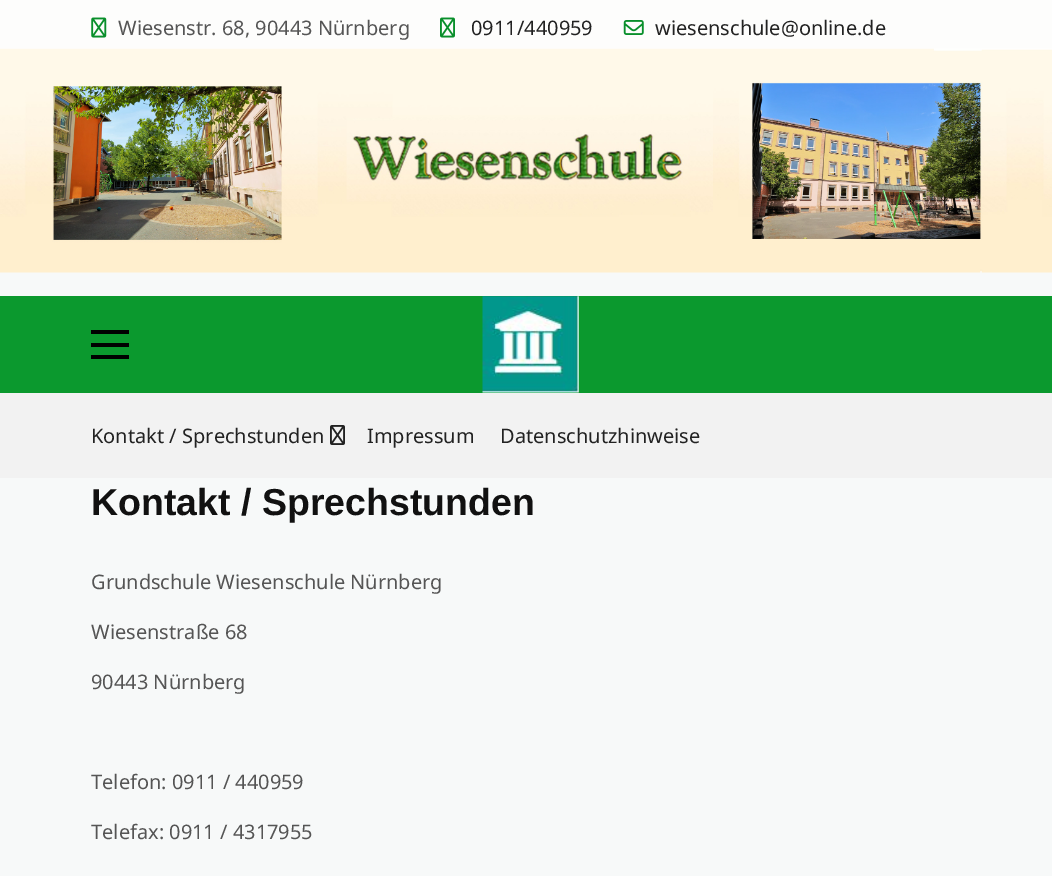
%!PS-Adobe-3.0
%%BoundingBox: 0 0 1052 876
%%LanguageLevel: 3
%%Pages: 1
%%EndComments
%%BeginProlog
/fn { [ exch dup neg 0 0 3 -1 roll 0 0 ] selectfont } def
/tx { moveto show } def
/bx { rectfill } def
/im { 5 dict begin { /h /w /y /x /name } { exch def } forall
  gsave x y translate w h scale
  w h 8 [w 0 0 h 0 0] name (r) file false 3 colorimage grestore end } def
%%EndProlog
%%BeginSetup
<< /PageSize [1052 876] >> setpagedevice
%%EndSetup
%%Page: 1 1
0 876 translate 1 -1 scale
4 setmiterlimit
0.969 0.976 0.976 setrgbcolor
0 0 1052 876 bx
0.992 0.992 0.988 setrgbcolor
0 0 1052 49 bx
(image0.raw) 91 17 16 21 im
/NotoSans-Regular 20 fn
0.333 setgray
(Wiesenstr. 68, 90443 Nürnberg) 118 35 tx
(image1.raw) 440 17 15 21 im
0.133 setgray
(0911/440959) 471 35 tx
(image2.raw) 623 20 21 15 im
(wiesenschule@online.de) 655 35 tx
(image3.raw) 0 48 1052 225 im
0.043 0.6 0.18 setrgbcolor
0 296 1052 97 bx
0 setgray
91 343 38 4 bx
91 330 38 4 bx
91 355 38 4 bx
(image4.raw) 482 296 97 97 im
0.949 setgray
0 393 1052 85 bx
0.133 setgray
(Kontakt / Sprechstunden) 91 443 tx
(image5.raw) 330 425 15 20 im
(Impressum) 367 443 tx
(Datenschutzhinweise) 500 443 tx
/LiberationSans-Bold 37.5 fn
0.067 setgray
(Kontakt / Sprechstunden) 91 515 tx
/NotoSans-Regular 20 fn
0.333 setgray
(Grundschule Wiesenschule Nürnberg) 91 589 tx
(Wiesenstraße 68) 91 639 tx
(90443 Nürnberg) 91 689 tx
(Telefon: 0911 / 440959) 91 789 tx
(Telefax: 0911 / 4317955) 91 839 tx
showpage
%%EOF
